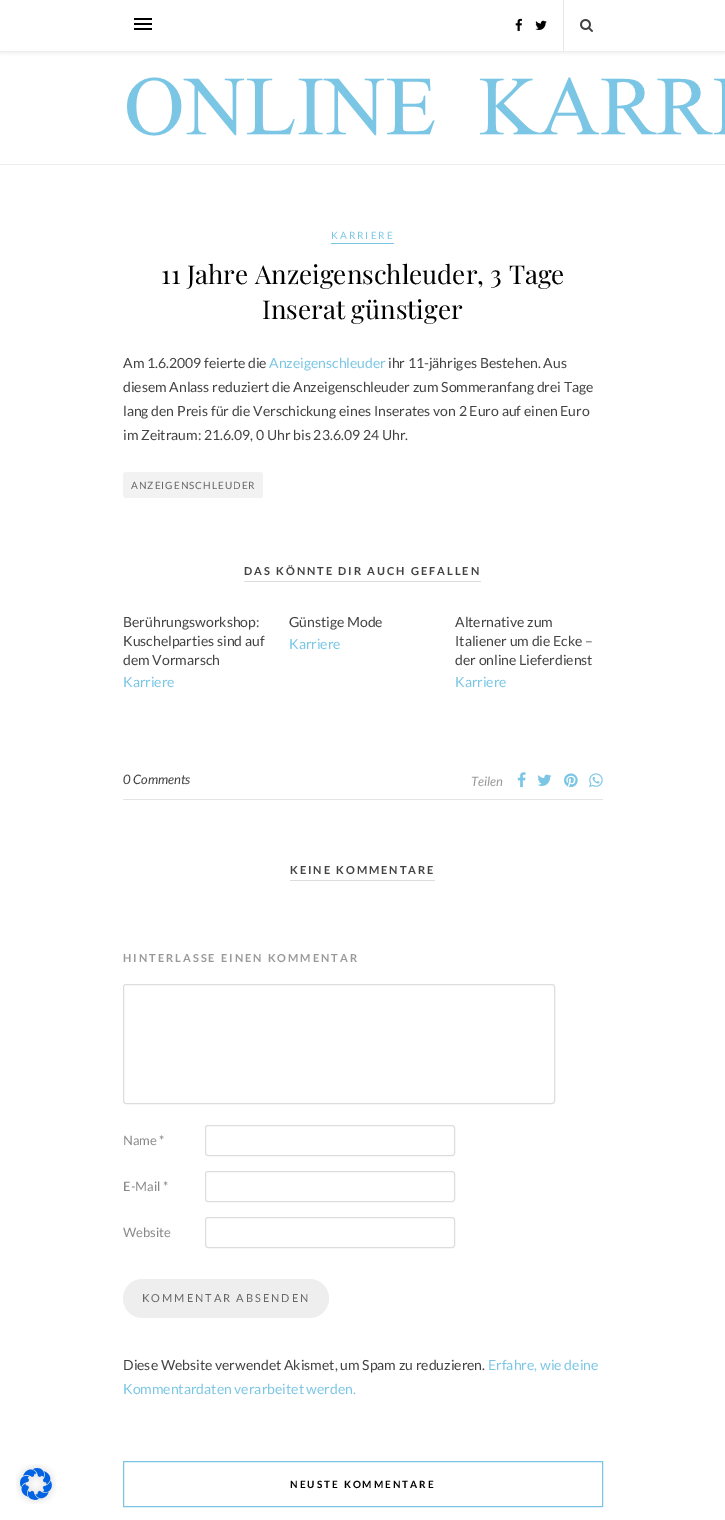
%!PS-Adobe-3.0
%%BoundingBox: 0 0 725 1520
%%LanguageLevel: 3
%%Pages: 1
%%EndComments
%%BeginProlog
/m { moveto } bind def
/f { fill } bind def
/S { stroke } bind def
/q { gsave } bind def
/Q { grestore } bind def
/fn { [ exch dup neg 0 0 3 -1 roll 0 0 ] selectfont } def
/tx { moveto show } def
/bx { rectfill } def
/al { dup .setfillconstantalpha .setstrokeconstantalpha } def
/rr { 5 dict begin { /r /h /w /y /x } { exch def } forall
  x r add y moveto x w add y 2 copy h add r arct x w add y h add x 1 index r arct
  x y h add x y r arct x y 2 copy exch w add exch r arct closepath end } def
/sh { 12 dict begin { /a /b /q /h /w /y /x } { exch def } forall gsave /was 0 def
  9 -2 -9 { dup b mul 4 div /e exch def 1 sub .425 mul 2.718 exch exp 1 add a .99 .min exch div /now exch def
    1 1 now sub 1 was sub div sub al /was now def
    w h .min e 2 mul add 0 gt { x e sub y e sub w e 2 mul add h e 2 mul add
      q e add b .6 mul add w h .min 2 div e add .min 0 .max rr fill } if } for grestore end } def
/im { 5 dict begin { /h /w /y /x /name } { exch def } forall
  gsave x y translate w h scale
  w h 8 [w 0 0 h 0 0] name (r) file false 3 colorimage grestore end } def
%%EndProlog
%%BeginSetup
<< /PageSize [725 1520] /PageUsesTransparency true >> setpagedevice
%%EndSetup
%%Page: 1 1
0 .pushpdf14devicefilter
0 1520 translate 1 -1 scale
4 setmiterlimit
1 setgray
0 0 725 1520 bx
q
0 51 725 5 rectclip
0.745 setgray
0 1 725 51 0 2.5 0.46 sh
Q
0 setgray
134 18 18 2 bx
134 23 18 2 bx
134 28 18 2 bx
(image0.raw) 515 18 7 13 im
(image1.raw) 535 20 12 10 im
0.91 setgray
563 0 1 51 bx
(image2.raw) 580 19 13 13 im
0.933 setgray
0 164 725 1 bx
(image3.raw) 126 77 599 59 im
(image4.raw) 16 1464 40 40 im
0.482 0.776 0.898 setrgbcolor
331 243 63 1 bx
/Lato-Regular 10 fn
331 239 m 2 0 (KARRIERE) ashow
/PlayfairDisplay-Regular 26 fn
0 setgray
(11 Jahre Anzeigenschleuder, 3 Tage) 161 284 tx
(Inserat günstiger) 262 319 tx
/Lato-Regular 14 fn
0.259 setgray
(Am 1.6.2009 feierte die) 123 368 tx
0.482 0.776 0.898 setrgbcolor
(Anzeigenschleuder) 269 368 tx
0.259 setgray
(ihr 11-jähriges Bestehen. Aus) 388 368 tx
(diesem Anlass reduziert die Anzeigenschleuder zum Sommeranfang drei Tage) 123 392 tx
(lang den Preis für die Verschickung eines Inserates von 2 Euro auf einen Euro) 123 416 tx
(im Zeitraum: 21.6.09, 0 Uhr bis 23.6.09 24 Uhr.) 123 440 tx
0.949 setgray
123 472 140 26 3 rr f
/Lato-Regular 10 fn
0.4 setgray
131 489 m 1 0 (ANZEIGENSCHLEUDER) ashow
0.867 setgray
244 581 237 1 bx
/Lato-Bold 11 fn
0.259 setgray
244 575 m 2 0 (DAS KÖNNTE DIR AUCH GEFALLEN) ashow
/Lato-Regular 14 fn
(Berührungsworkshop:) 123 627 tx
(Kuschelparties sind auf) 123 646 tx
(dem Vormarsch) 123 665 tx
0.482 0.776 0.898 setrgbcolor
(Karriere) 123 687 tx
0.259 setgray
(Günstige Mode) 289 627 tx
0.482 0.776 0.898 setrgbcolor
(Karriere) 289 649 tx
0.259 setgray
(Alternative zum) 455 627 tx
(Italiener um die Ecke –) 455 646 tx
(der online Lieferdienst) 455 665 tx
0.482 0.776 0.898 setrgbcolor
(Karriere) 455 687 tx
0.898 setgray
123 799 480 1 bx
/Lato-Italic 13 fn
0.259 setgray
(0 Comments) 123 784 tx
0.6 setgray
(Teilen) 471 786 tx
(image5.raw) 517 772 9 16 im
(image6.raw) 537 774 15 12 im
(image7.raw) 564 773 14 15 im
(image8.raw) 589 773 14 15 im
0.867 setgray
290 880 145 1 bx
/Lato-Bold 11 fn
0.259 setgray
290 874 m 2 0 (KEINE KOMMENTARE) ashow
0.6 setgray
123 962 m 2 0 (HINTERLASSE EINEN KOMMENTAR) ashow
0.867 setgray
123.5 984.5 431 119 2.5 rr S
/Lato-Regular 13 fn
0.533 setgray
(Name *) 123 1145 tx
0.867 setgray
205.5 1125.5 249 30 2.5 rr S
0.533 setgray
(E-Mail *) 123 1191 tx
0.867 setgray
205.5 1171.5 249 30 2.5 rr S
0.533 setgray
(Website) 123 1237 tx
0.867 setgray
205.5 1217.5 249 30 2.5 rr S
0.933 setgray
123 1279 206 39 19.5 rr f
/Lato-Regular 11 fn
0.4 setgray
142 1302 m 2 0 (KOMMENTAR ABSENDEN) ashow
/Lato-Regular 14 fn
0.259 setgray
(Diese Website verwendet Akismet, um Spam zu reduzieren.) 123 1370 tx
0.482 0.776 0.898 setrgbcolor
(Erfahre, wie deine) 488 1370 tx
(Kommentardaten verarbeitet werden.) 123 1394 tx
123.5 1461.5 479 45 rectstroke
/Lato-Bold 10 fn
0 setgray
290 1488 m 2 0 (NEUSTE KOMMENTARE) ashow
.poppdf14devicefilter showpage
%%EOF
